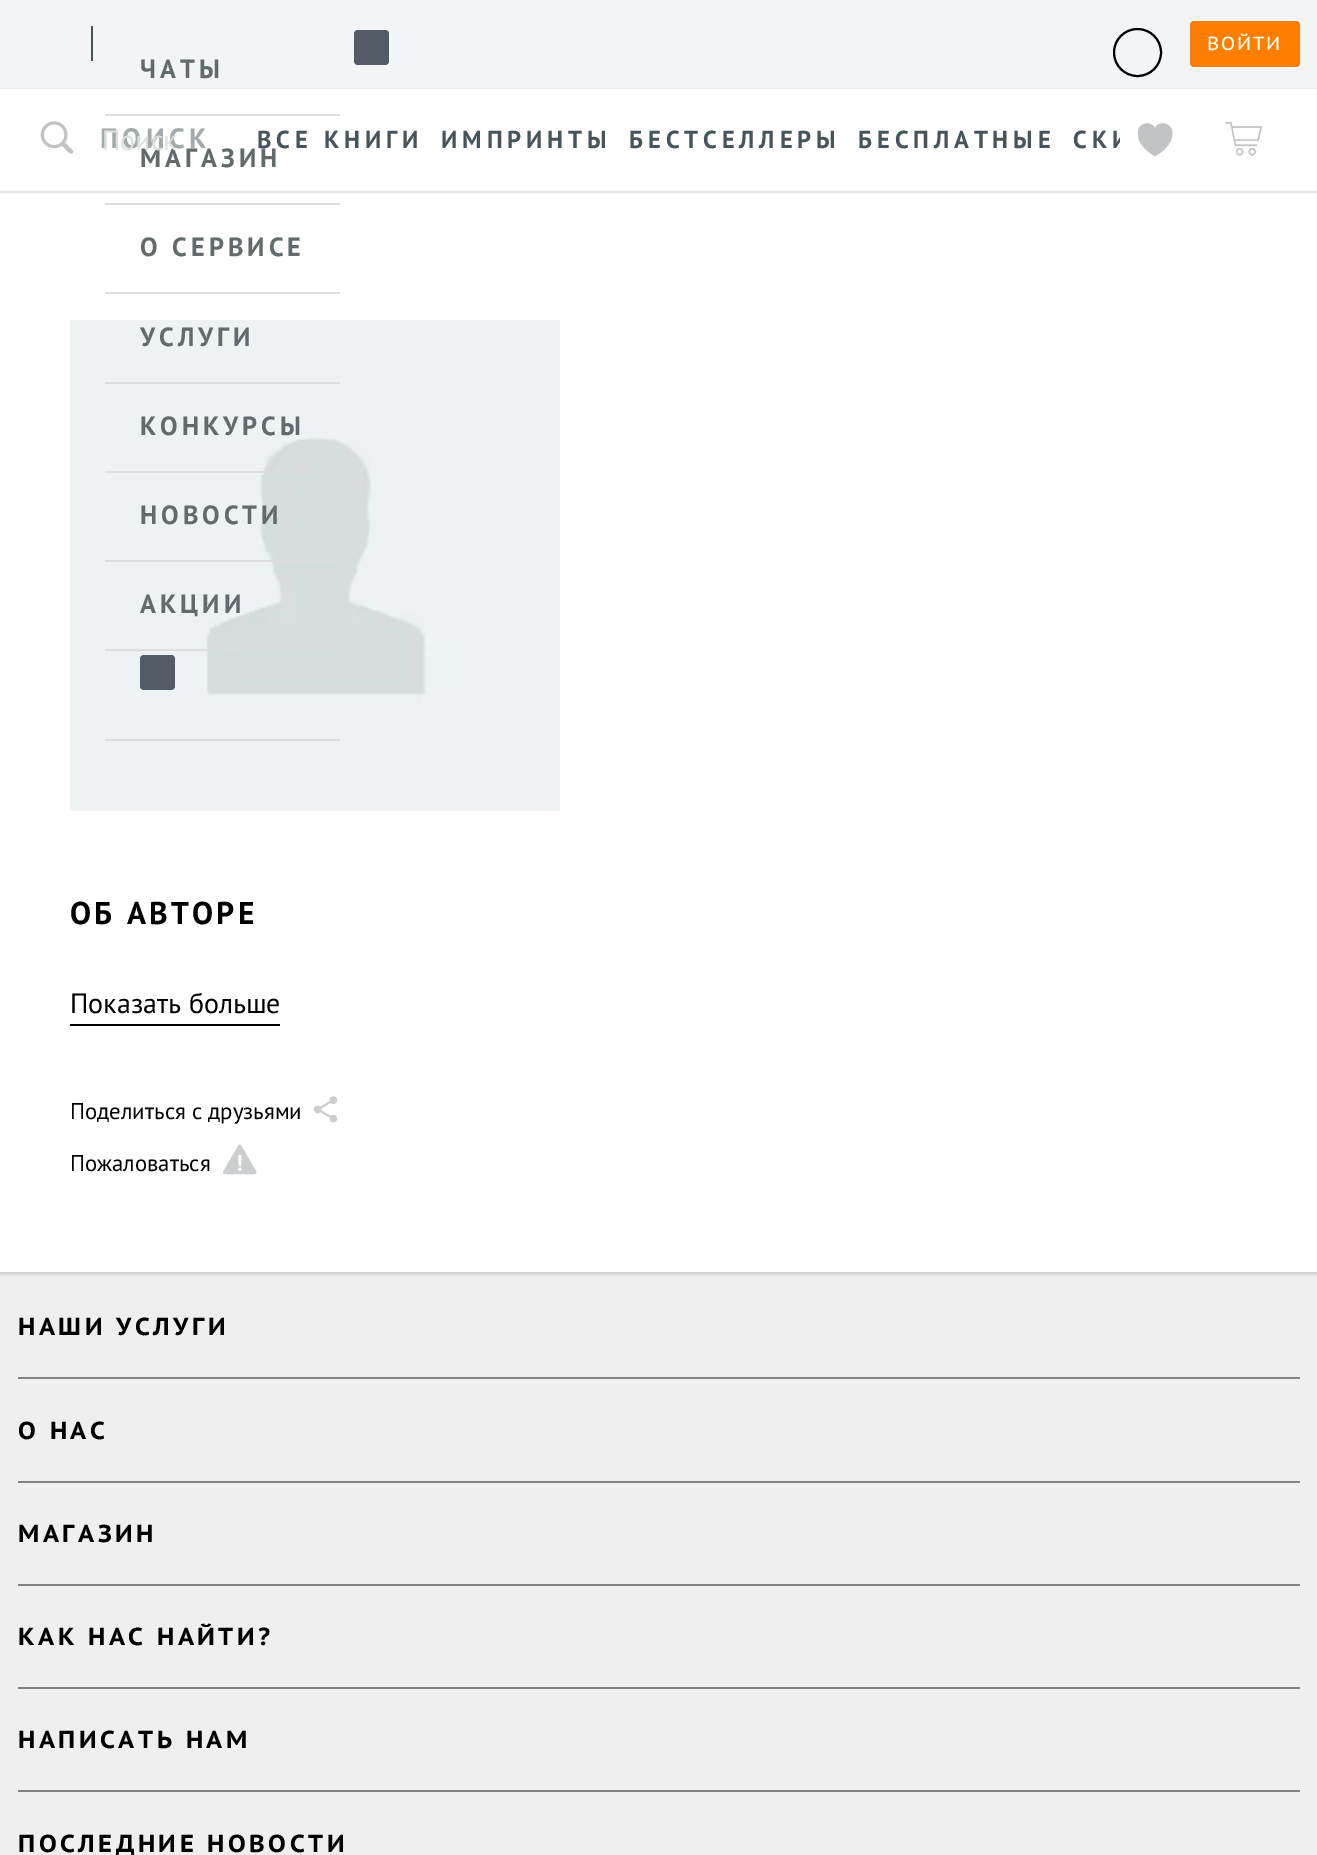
%!PS-Adobe-3.0
%%BoundingBox: 0 0 1317 1855
%%LanguageLevel: 3
%%Pages: 1
%%EndComments
%%BeginProlog
/m { moveto } bind def
/l { lineto } bind def
/h { closepath } bind def
/f { fill } bind def
/S { stroke } bind def
/q { gsave } bind def
/Q { grestore } bind def
/w { setlinewidth } bind def
/fn { [ exch dup neg 0 0 3 -1 roll 0 0 ] selectfont } def
/tx { moveto show } def
/bx { rectfill } def
/ci { newpath 0 360 arc closepath } def
/rr { 5 dict begin { /r /h /w /y /x } { exch def } forall
  x r add y moveto x w add y 2 copy h add r arct x w add y h add x 1 index r arct
  x y h add x y r arct x y 2 copy exch w add exch r arct closepath end } def
/im { 5 dict begin { /h /w /y /x /name } { exch def } forall
  gsave x y translate w h scale
  w h 8 [w 0 0 h 0 0] name (r) file false 3 colorimage grestore end } def
%%EndProlog
%%BeginSetup
<< /PageSize [1317 1855] >> setpagedevice
%%EndSetup
%%Page: 1 1
0 1855 translate 1 -1 scale
4 setmiterlimit
1 setgray
0 0 1317 1855 bx
0.914 0.925 0.929 setrgbcolor
0 88 m 0 89 l 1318 89 l 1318 2 l 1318 88 l h f
0.949 0.957 0.961 setrgbcolor
0 0 1317 88 bx
1 0.494 0 setrgbcolor
1190 21 110 46 4 rr f
/PTSansCaption-Regular 19 fn
1 setgray
1207 50 m 1.75 0 (ВОЙТИ) ashow
0.275 0.329 0.357 setrgbcolor
91 26 2 35 bx
0.325 0.361 0.4 setrgbcolor
354 30 35 35 4 rr f
0 setgray
2 w
1137.5 52.5 23.5 ci S
0.867 setgray
105 114 235 2 bx
/PTSans-Bold 26.25 fn
0.388 0.416 0.427 setrgbcolor
140 78 m 4 0 (ЧАТЫ) ashow
0.867 setgray
105 203 235 2 bx
0.388 0.416 0.427 setrgbcolor
140 167 m 4 0 (МАГАЗИН) ashow
0.867 setgray
105 292 235 2 bx
0.388 0.416 0.427 setrgbcolor
140 256 m 4 0 (О СЕРВИСЕ) ashow
0.933 0.949 0.953 setrgbcolor
70 320 490 490 bx
0.867 setgray
105 382 235 2 bx
0.388 0.416 0.427 setrgbcolor
140 346 m 4 0 (УСЛУГИ) ashow
(image3.raw) 70 437 490 374 im
0.867 setgray
105 471 235 2 bx
0.388 0.416 0.427 setrgbcolor
140 435 m 4 0 (КОНКУРСЫ) ashow
0.867 setgray
105 560 235 2 bx
0.388 0.416 0.427 setrgbcolor
140 524 m 4 0 (НОВОСТИ) ashow
0.867 setgray
105 649 235 2 bx
0.388 0.416 0.427 setrgbcolor
140 613 m 4 0 (АКЦИИ) ashow
0.867 setgray
105 739 235 2 bx
0.325 0.361 0.4 setrgbcolor
140 655 35 35 4 rr f
0.875 0.89 0.898 setrgbcolor
0 191 1317 2 bx
(image0.raw) 40 121 34 33 im
/PTSans-Bold 28 fn
0.639 0.667 0.678 setrgbcolor
100 148 m 4.5 0 (ПОИСК) ashow
/PTSans-Regular 28 fn
0.863 0.875 0.878 setrgbcolor
(Поиск) 102 150 tx
/PTSans-Bold 24.5 fn
0.275 0.329 0.357 setrgbcolor
257 148 m 4.9 0 (ВСЕ КНИГИ) ashow
441 148 m 4.9 0 (ИМПРИНТЫ) ashow
629 148 m 4.9 0 (БЕСТСЕЛЛЕРЫ) ashow
858 148 m 4.9 0 (БЕСПЛАТНЫЕ) ashow
q
249 124 871 32 rectclip
1073 148 m 4.9 0 (СКИ) ashow
Q
(image1.raw) 1138 123 35 34 im
(image2.raw) 1225 122 37 34 im
0.827 setgray
0 1272 1317 2 bx
/PTSans-Bold 31.5 fn
0 setgray
70 924 m 3.25 0 (ОБ АВТОРЕ) ashow
70 1024 210 2 bx
/PTSans-Regular 28 fn
(Показать больше) 70 1013 tx
/PTSans-Regular 22.75 fn
(Поделиться с друзьями) 70 1119 tx
(image4.raw) 313 1096 25 27 im
(Пожаловаться) 70 1171 tx
(image5.raw) 222 1144 35 31 im
0.937 setgray
0 1276 1317 579 bx
0.875 0.89 0.898 setrgbcolor
0 1274 1317 2 bx
0.51 setgray
18 1377 1282 2 bx
/PTSansCaption-Bold 24.5 fn
0 setgray
18 1335 m 3.5 0 (НАШИ УСЛУГИ) ashow
0.51 setgray
18 1481 1282 2 bx
0 setgray
18 1439 m 3.5 0 (О НАС) ashow
0.51 setgray
18 1584 1282 2 bx
0 setgray
18 1542 m 3.5 0 (МАГАЗИН) ashow
0.51 setgray
18 1687 1282 2 bx
0 setgray
18 1645 m 3.5 0 (КАК НАС НАЙТИ?) ashow
0.51 setgray
18 1790 1282 2 bx
0 setgray
18 1748 m 3.5 0 (НАПИСАТЬ НАМ) ashow
18 1852 m 3.5 0 (ПОСЛЕДНИЕ НОВОСТИ) ashow
showpage
%%EOF
